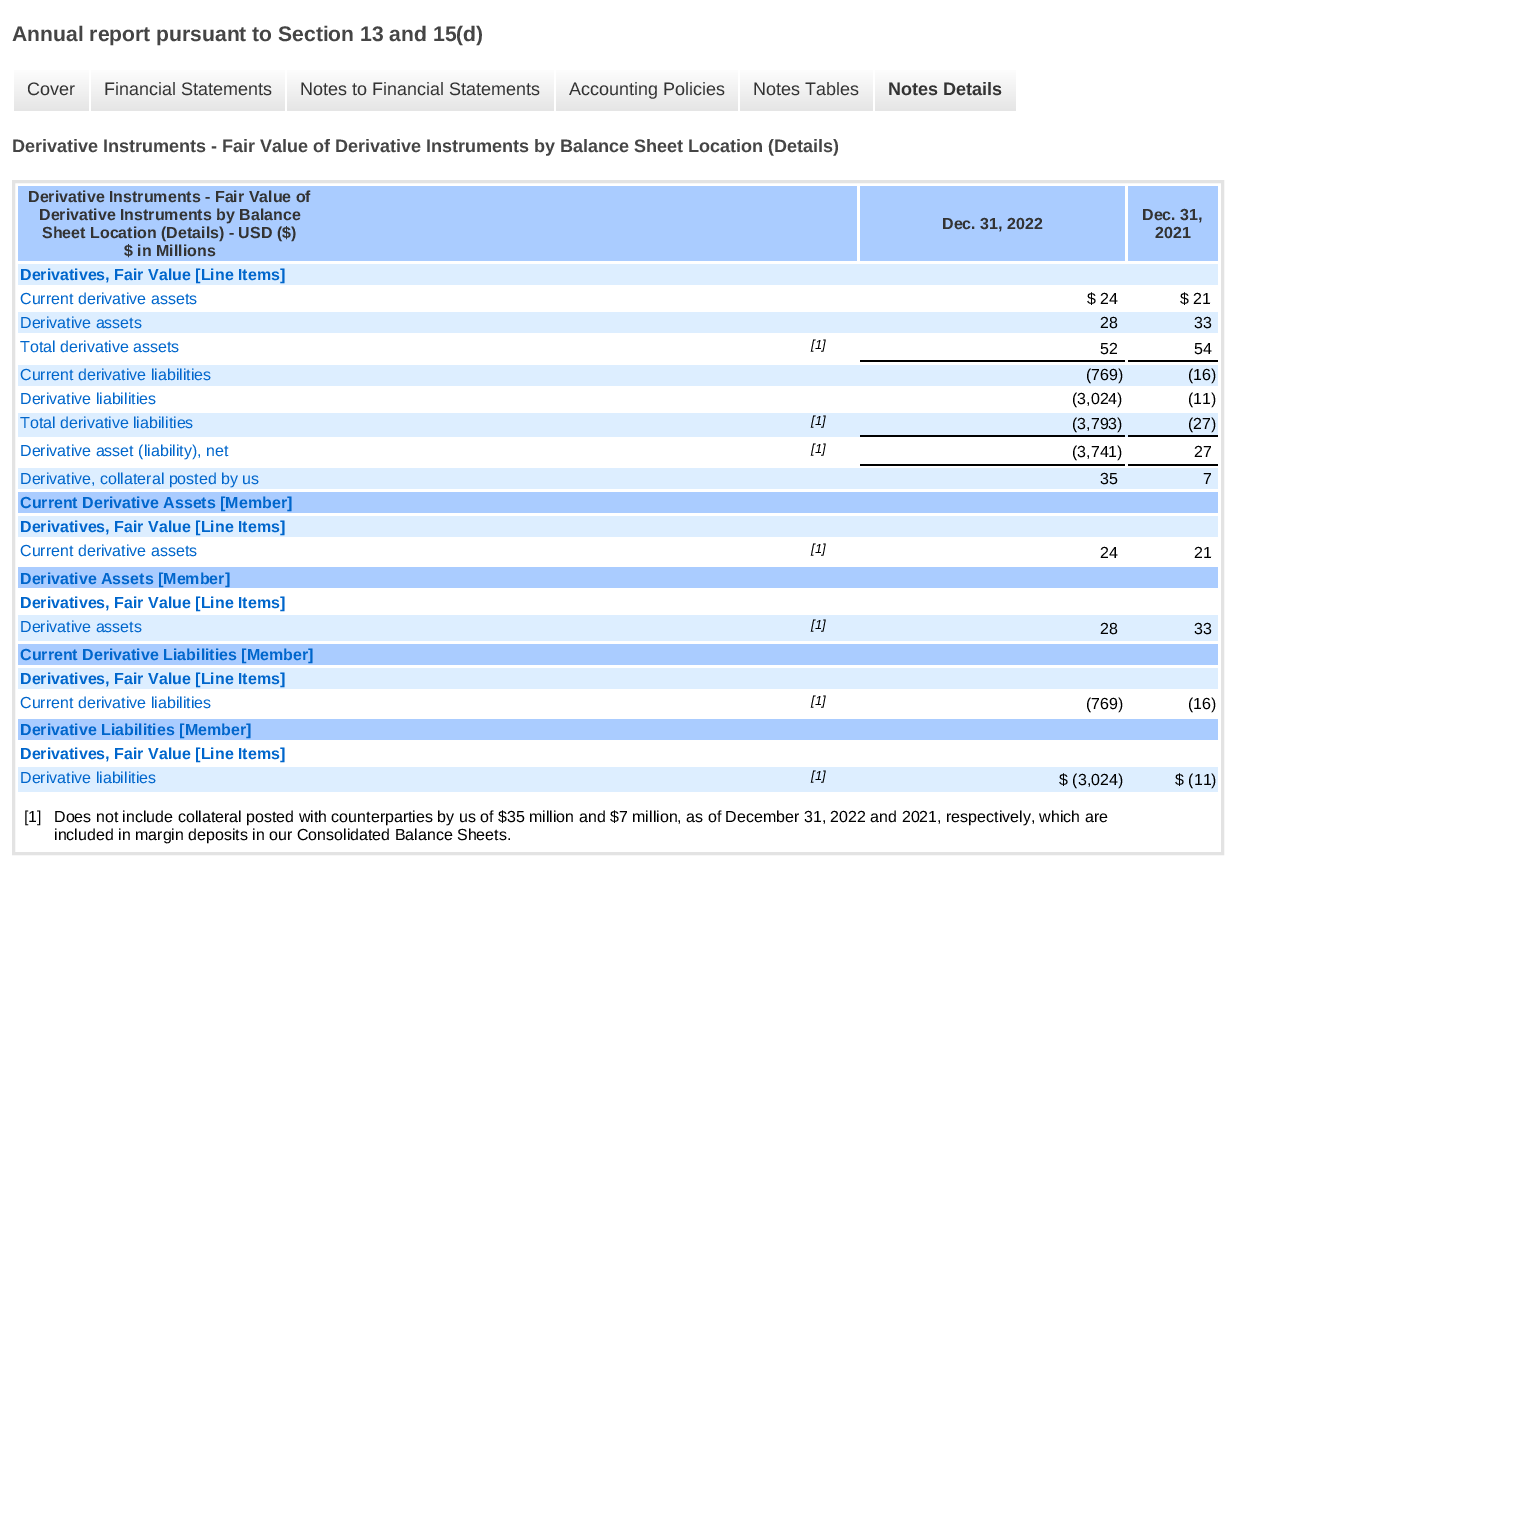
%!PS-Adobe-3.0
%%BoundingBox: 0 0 1539 1522
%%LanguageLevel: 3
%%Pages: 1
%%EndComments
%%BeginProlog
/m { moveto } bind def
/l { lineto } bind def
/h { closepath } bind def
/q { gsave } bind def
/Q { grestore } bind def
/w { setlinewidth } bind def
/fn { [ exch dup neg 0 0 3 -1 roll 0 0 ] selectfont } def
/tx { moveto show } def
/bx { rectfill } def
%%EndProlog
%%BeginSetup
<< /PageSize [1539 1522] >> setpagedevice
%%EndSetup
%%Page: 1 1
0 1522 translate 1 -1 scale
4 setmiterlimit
1 setgray
0 0 1539 1522 bx
/LiberationSans-Bold 21.1 fn
0.271 setgray
(Annual report pursuant to Section 13 and 15\(d\)) 12 41 tx
q 14 70 m 89 70 l 89 111 l 14 111 l h clip newpath
<< /ShadingType 2 /ColorSpace /DeviceRGB /Coords [51 66 51 111] /Extend [true true] /Function << /FunctionType 2 /Domain [0 1] /C0 [1 1 1] /C1 [0.898 0.898 0.898] /N 1 >> >> shfill Q
/LiberationSans-Regular 18 fn
0.2 setgray
(Cover) 27 95 tx
q 91 70 m 285 70 l 285 111 l 91 111 l h clip newpath
<< /ShadingType 2 /ColorSpace /DeviceRGB /Coords [188 66 188 111] /Extend [true true] /Function << /FunctionType 2 /Domain [0 1] /C0 [1 1 1] /C1 [0.898 0.898 0.898] /N 1 >> >> shfill Q
(Financial Statements) 104 95 tx
q 287 70 m 554 70 l 554 111 l 287 111 l h clip newpath
<< /ShadingType 2 /ColorSpace /DeviceRGB /Coords [420 66 420 111] /Extend [true true] /Function << /FunctionType 2 /Domain [0 1] /C0 [1 1 1] /C1 [0.898 0.898 0.898] /N 1 >> >> shfill Q
(Notes to Financial Statements) 300 95 tx
q 556 70 m 738 70 l 738 111 l 556 111 l h clip newpath
<< /ShadingType 2 /ColorSpace /DeviceRGB /Coords [647 66 647 111] /Extend [true true] /Function << /FunctionType 2 /Domain [0 1] /C0 [1 1 1] /C1 [0.898 0.898 0.898] /N 1 >> >> shfill Q
(Accounting Policies) 569 95 tx
q 740 70 m 873 70 l 873 111 l 740 111 l h clip newpath
<< /ShadingType 2 /ColorSpace /DeviceRGB /Coords [806 66 806 111] /Extend [true true] /Function << /FunctionType 2 /Domain [0 1] /C0 [1 1 1] /C1 [0.898 0.898 0.898] /N 1 >> >> shfill Q
(Notes Tables) 753 95 tx
q 875 70 m 1016 70 l 1016 111 l 875 111 l h clip newpath
<< /ShadingType 2 /ColorSpace /DeviceRGB /Coords [945 66 945 111] /Extend [true true] /Function << /FunctionType 2 /Domain [0 1] /C0 [1 1 1] /C1 [0.898 0.898 0.898] /N 1 >> >> shfill Q
/LiberationSans-Bold 18 fn
(Notes Details) 888 95 tx
0.271 setgray
(Derivative Instruments - Fair Value of Derivative Instruments by Balance Sheet Location \(Details\)) 12 152 tx
0.89 setgray
3 w
13.5 181.5 1209 672 rectstroke
0.667 0.8 1 setrgbcolor
18 186 839 75 bx
/LiberationSans-Bold 16 fn
0.2 setgray
(Derivative Instruments - Fair Value of) 28 202 tx
(Derivative Instruments by Balance) 39 220 tx
(Sheet Location \(Details\) - USD \($\)) 42 238 tx
($ in Millions) 124 256 tx
0.667 0.8 1 setrgbcolor
860 186 265 75 bx
0.2 setgray
(Dec. 31, 2022) 942 229 tx
0.667 0.8 1 setrgbcolor
1128 186 90 75 bx
0.2 setgray
(Dec. 31,) 1142 220 tx
(2021) 1155 238 tx
0.867 0.933 1 setrgbcolor
18 264 1200 21 bx
0 0.4 0.8 setrgbcolor
(Derivatives, Fair Value [Line Items]) 20 280 tx
/LiberationSans-Regular 16 fn
(Current derivative assets) 20 304 tx
0 setgray
($ 24) 1087 304 tx
($ 21) 1180 304 tx
0.867 0.933 1 setrgbcolor
18 312 1200 21 bx
0 0.4 0.8 setrgbcolor
(Derivative assets) 20 328 tx
0 setgray
(28) 1100 328 tx
(33) 1194 328 tx
0 0.4 0.8 setrgbcolor
(Total derivative assets) 20 352 tx
/LiberationSans-Italic 13 fn
0 setgray
([1]) 811 349 tx
860 360 265 2 bx
/LiberationSans-Regular 16 fn
(52) 1100 354 tx
1128 360 90 2 bx
(54) 1194 354 tx
0.867 0.933 1 setrgbcolor
18 365 1200 21 bx
0 0.4 0.8 setrgbcolor
(Current derivative liabilities) 20 380 tx
0 setgray
(\(769\)) 1086 380 tx
(\(16\)) 1188 380 tx
0 0.4 0.8 setrgbcolor
(Derivative liabilities) 20 404 tx
0 setgray
(\(3,024\)) 1072 404 tx
(\(11\)) 1188 404 tx
0.867 0.933 1 setrgbcolor
18 413 1200 24 bx
0 0.4 0.8 setrgbcolor
(Total derivative liabilities) 20 428 tx
/LiberationSans-Italic 13 fn
0 setgray
([1]) 811 425 tx
860 435 265 2 bx
/LiberationSans-Regular 16 fn
(\(3,793\)) 1072 429 tx
1128 435 90 2 bx
(\(27\)) 1188 429 tx
0 0.4 0.8 setrgbcolor
(Derivative asset \(liability\), net) 20 456 tx
/LiberationSans-Italic 13 fn
0 setgray
([1]) 811 453 tx
860 464 265 2 bx
/LiberationSans-Regular 16 fn
(\(3,741\)) 1072 457 tx
1128 464 90 2 bx
(27) 1194 457 tx
0.867 0.933 1 setrgbcolor
18 468 1200 21 bx
0 0.4 0.8 setrgbcolor
(Derivative, collateral posted by us) 20 484 tx
0 setgray
(35) 1100 484 tx
(7) 1203 484 tx
0.667 0.8 1 setrgbcolor
18 492 1200 21 bx
/LiberationSans-Bold 16 fn
0 0.4 0.8 setrgbcolor
(Current Derivative Assets [Member]) 20 508 tx
0.867 0.933 1 setrgbcolor
18 516 1200 21 bx
0 0.4 0.8 setrgbcolor
(Derivatives, Fair Value [Line Items]) 20 532 tx
/LiberationSans-Regular 16 fn
(Current derivative assets) 20 556 tx
/LiberationSans-Italic 13 fn
0 setgray
([1]) 811 553 tx
/LiberationSans-Regular 16 fn
(24) 1100 558 tx
(21) 1194 558 tx
0.667 0.8 1 setrgbcolor
18 567 1200 21 bx
/LiberationSans-Bold 16 fn
0 0.4 0.8 setrgbcolor
(Derivative Assets [Member]) 20 584 tx
(Derivatives, Fair Value [Line Items]) 20 608 tx
0.867 0.933 1 setrgbcolor
18 615 1200 26 bx
/LiberationSans-Regular 16 fn
0 0.4 0.8 setrgbcolor
(Derivative assets) 20 632 tx
/LiberationSans-Italic 13 fn
0 setgray
([1]) 811 629 tx
/LiberationSans-Regular 16 fn
(28) 1100 634 tx
(33) 1194 634 tx
0.667 0.8 1 setrgbcolor
18 644 1200 21 bx
/LiberationSans-Bold 16 fn
0 0.4 0.8 setrgbcolor
(Current Derivative Liabilities [Member]) 20 660 tx
0.867 0.933 1 setrgbcolor
18 668 1200 21 bx
0 0.4 0.8 setrgbcolor
(Derivatives, Fair Value [Line Items]) 20 684 tx
/LiberationSans-Regular 16 fn
(Current derivative liabilities) 20 708 tx
/LiberationSans-Italic 13 fn
0 setgray
([1]) 811 705 tx
/LiberationSans-Regular 16 fn
(\(769\)) 1086 709 tx
(\(16\)) 1188 709 tx
0.667 0.8 1 setrgbcolor
18 719 1200 21 bx
/LiberationSans-Bold 16 fn
0 0.4 0.8 setrgbcolor
(Derivative Liabilities [Member]) 20 735 tx
(Derivatives, Fair Value [Line Items]) 20 759 tx
0.867 0.933 1 setrgbcolor
18 767 1200 25 bx
/LiberationSans-Regular 16 fn
0 0.4 0.8 setrgbcolor
(Derivative liabilities) 20 783 tx
/LiberationSans-Italic 13 fn
0 setgray
([1]) 811 780 tx
/LiberationSans-Regular 16 fn
($ \(3,024\)) 1059 785 tx
($ \(11\)) 1175 785 tx
([1]) 24 822 tx
(Does not include collateral posted with counterparties by us of $35 million and $7 million, as of December 31, 2022 and 2021, respectively, which are) 54 822 tx
(included in margin deposits in our Consolidated Balance Sheets.) 54 840 tx
showpage
%%EOF
